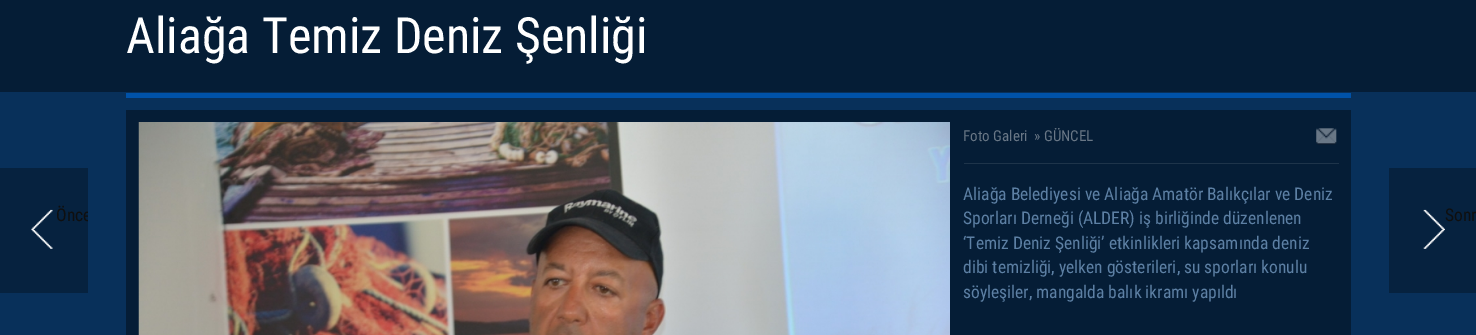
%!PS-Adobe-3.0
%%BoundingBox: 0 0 1476 335
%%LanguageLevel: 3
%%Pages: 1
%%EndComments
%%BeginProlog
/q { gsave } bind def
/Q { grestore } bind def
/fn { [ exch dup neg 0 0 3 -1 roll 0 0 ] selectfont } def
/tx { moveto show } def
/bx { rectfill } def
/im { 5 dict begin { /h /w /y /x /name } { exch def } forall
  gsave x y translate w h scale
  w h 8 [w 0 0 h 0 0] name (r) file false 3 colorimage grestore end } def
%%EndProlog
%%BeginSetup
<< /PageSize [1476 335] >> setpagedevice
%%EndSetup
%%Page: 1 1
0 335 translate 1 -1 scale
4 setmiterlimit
0.031 0.188 0.353 setrgbcolor
0 0 1476 335 bx
0.02 0.114 0.212 setrgbcolor
0 0 1476 92 bx
0.024 0.133 0.247 setrgbcolor
0 168 88 125 bx
(image0.raw) 31 209 22 40 im
q
0 168 88 125 rectclip
/RobotoCondensed-Regular 17.5 fn
0.059 setgray
(Önce) 56 221 tx
Q
0 0.322 0.659 setrgbcolor
126 93 1225 5 bx
/RobotoCondensed-Regular 50 fn
1 setgray
(Aliağa Temiz Deniz Şenliği) 126 53 tx
0.02 0.114 0.212 setrgbcolor
126 110 1225 225 bx
(image1.raw) 138 122 812 213 im
/RobotoCondensed-Regular 15 fn
0.412 0.467 0.525 setrgbcolor
(Foto Galeri) 963 141 tx
(» GÜNCEL) 1034 141 tx
(image2.raw) 1316 128 21 17 im
0.118 0.204 0.29 setrgbcolor
964 163 375 1 bx
/RobotoCondensed-Regular 17.5 fn
0.365 0.502 0.643 setrgbcolor
(Aliağa Belediyesi ve Aliağa Amatör Balıkçılar ve Deniz) 963 200 tx
(Sporları Derneği \(ALDER\) iş birliğinde düzenlenen) 963 224 tx
(‘Temiz Deniz Şenliği’ etkinlikleri kapsamında deniz) 963 249 tx
(dibi temizliği, yelken gösterileri, su sporları konulu) 963 273 tx
(söyleşiler, mangalda balık ikramı yapıldı) 963 298 tx
0.024 0.133 0.247 setrgbcolor
1389 168 87 125 bx
(image3.raw) 1423 209 22 40 im
0.059 setgray
(Sonr) 1445 221 tx
showpage
%%EOF
